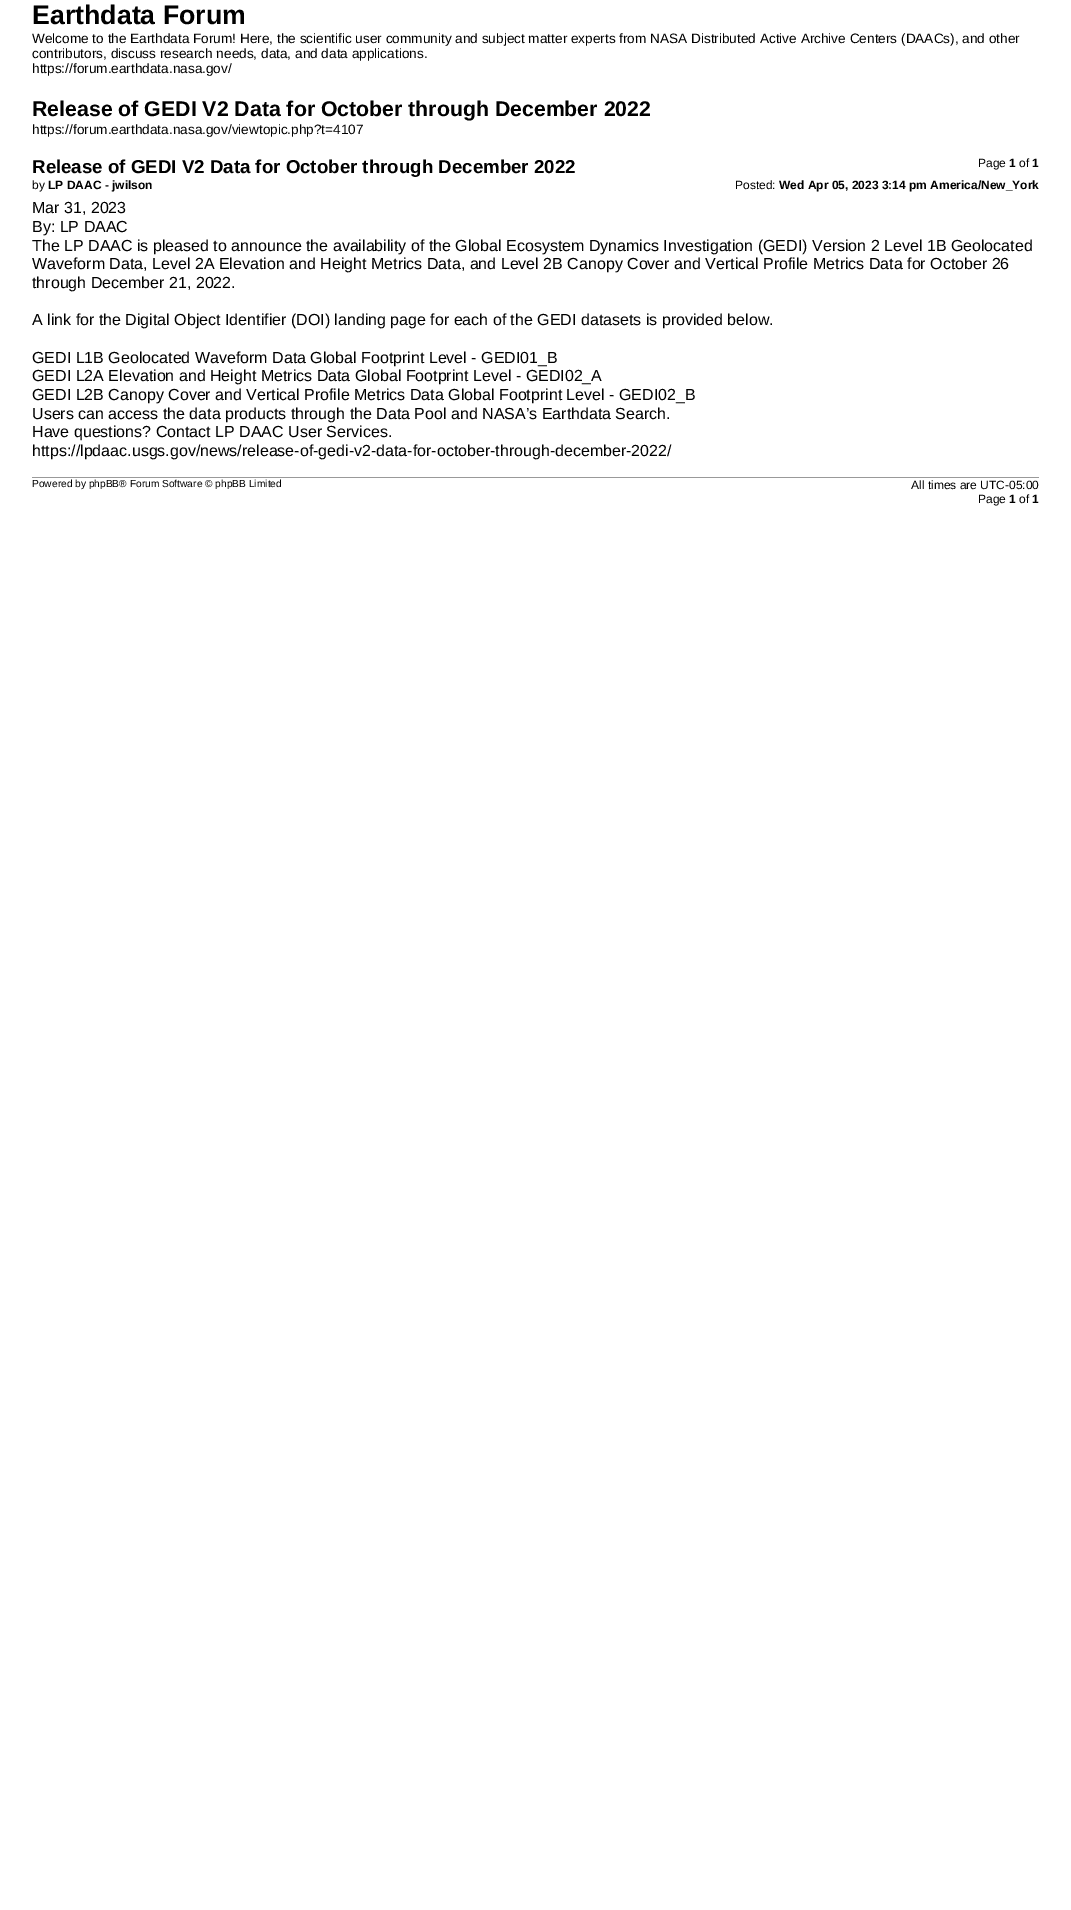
%!PS-Adobe-3.0
%%BoundingBox: 0 0 1071 1910
%%LanguageLevel: 3
%%Pages: 1
%%EndComments
%%BeginProlog
/fn { [ exch dup neg 0 0 3 -1 roll 0 0 ] selectfont } def
/tx { moveto show } def
/bx { rectfill } def
%%EndProlog
%%BeginSetup
<< /PageSize [1071 1910] >> setpagedevice
%%EndSetup
%%Page: 1 1
0 1910 translate 1 -1 scale
4 setmiterlimit
1 setgray
0 0 1071 1910 bx
/LiberationSans-Bold 26.75 fn
0 setgray
(Earthdata Forum) 32 24 tx
/LiberationSans-Regular 13.6 fn
(Welcome to the Earthdata Forum! Here, the scientific user community and subject matter experts from NASA Distributed Active Archive Centers \(DAACs\), and other) 32 43 tx
(contributors, discuss research needs, data, and data applications.) 32 58 tx
(https://forum.earthdata.nasa.gov/) 32 73 tx
/LiberationSans-Bold 21.3 fn
(Release of GEDI V2 Data for October through December 2022) 32 116 tx
/LiberationSans-Regular 13.6 fn
(https://forum.earthdata.nasa.gov/viewtopic.php?t=4107) 32 134 tx
/LiberationSans-Regular 12 fn
(Page) 978 167 tx
/LiberationSans-Bold 12 fn
(1) 1009 167 tx
/LiberationSans-Regular 12 fn
(of) 1019 167 tx
/LiberationSans-Bold 12 fn
(1) 1032 167 tx
/LiberationSans-Bold 18.7 fn
(Release of GEDI V2 Data for October through December 2022) 32 173 tx
/LiberationSans-Regular 12 fn
(by) 32 189 tx
/LiberationSans-Bold 12 fn
(LP DAAC - jwilson) 48 189 tx
/LiberationSans-Regular 12 fn
(Posted:) 735 189 tx
/LiberationSans-Bold 12 fn
(Wed Apr 05, 2023 3:14 pm America/New_York) 779 189 tx
/LiberationSans-Regular 16 fn
(Mar 31, 2023) 32 213 tx
(By: LP DAAC) 32 232 tx
(The LP DAAC is pleased to announce the availability of the Global Ecosystem Dynamics Investigation \(GEDI\) Version 2 Level 1B Geolocated) 32 251 tx
(Waveform Data, Level 2A Elevation and Height Metrics Data, and Level 2B Canopy Cover and Vertical Profile Metrics Data for October 26) 32 269 tx
(through December 21, 2022.) 32 288 tx
(A link for the Digital Object Identifier \(DOI\) landing page for each of the GEDI datasets is provided below.) 32 325 tx
(GEDI L1B Geolocated Waveform Data Global Footprint Level - GEDI01_B) 32 363 tx
(GEDI L2A Elevation and Height Metrics Data Global Footprint Level - GEDI02_A) 32 381 tx
(GEDI L2B Canopy Cover and Vertical Profile Metrics Data Global Footprint Level - GEDI02_B) 32 400 tx
(Users can access the data products through the Data Pool and NASA’s Earthdata Search.) 32 419 tx
(Have questions? Contact LP DAAC User Services.) 32 437 tx
(https://lpdaac.usgs.gov/news/release-of-gedi-v2-data-for-october-through-december-2022/) 32 456 tx
0.6 setgray
32 477 1007 1 bx
/LiberationSans-Regular 10.2 fn
0 setgray
(Powered by phpBB® Forum Software © phpBB Limited) 32 487 tx
/LiberationSans-Regular 12 fn
(All times are UTC-05:00) 911 489 tx
(Page) 978 503 tx
/LiberationSans-Bold 12 fn
(1) 1009 503 tx
/LiberationSans-Regular 12 fn
(of) 1019 503 tx
/LiberationSans-Bold 12 fn
(1) 1032 503 tx
showpage
%%EOF
